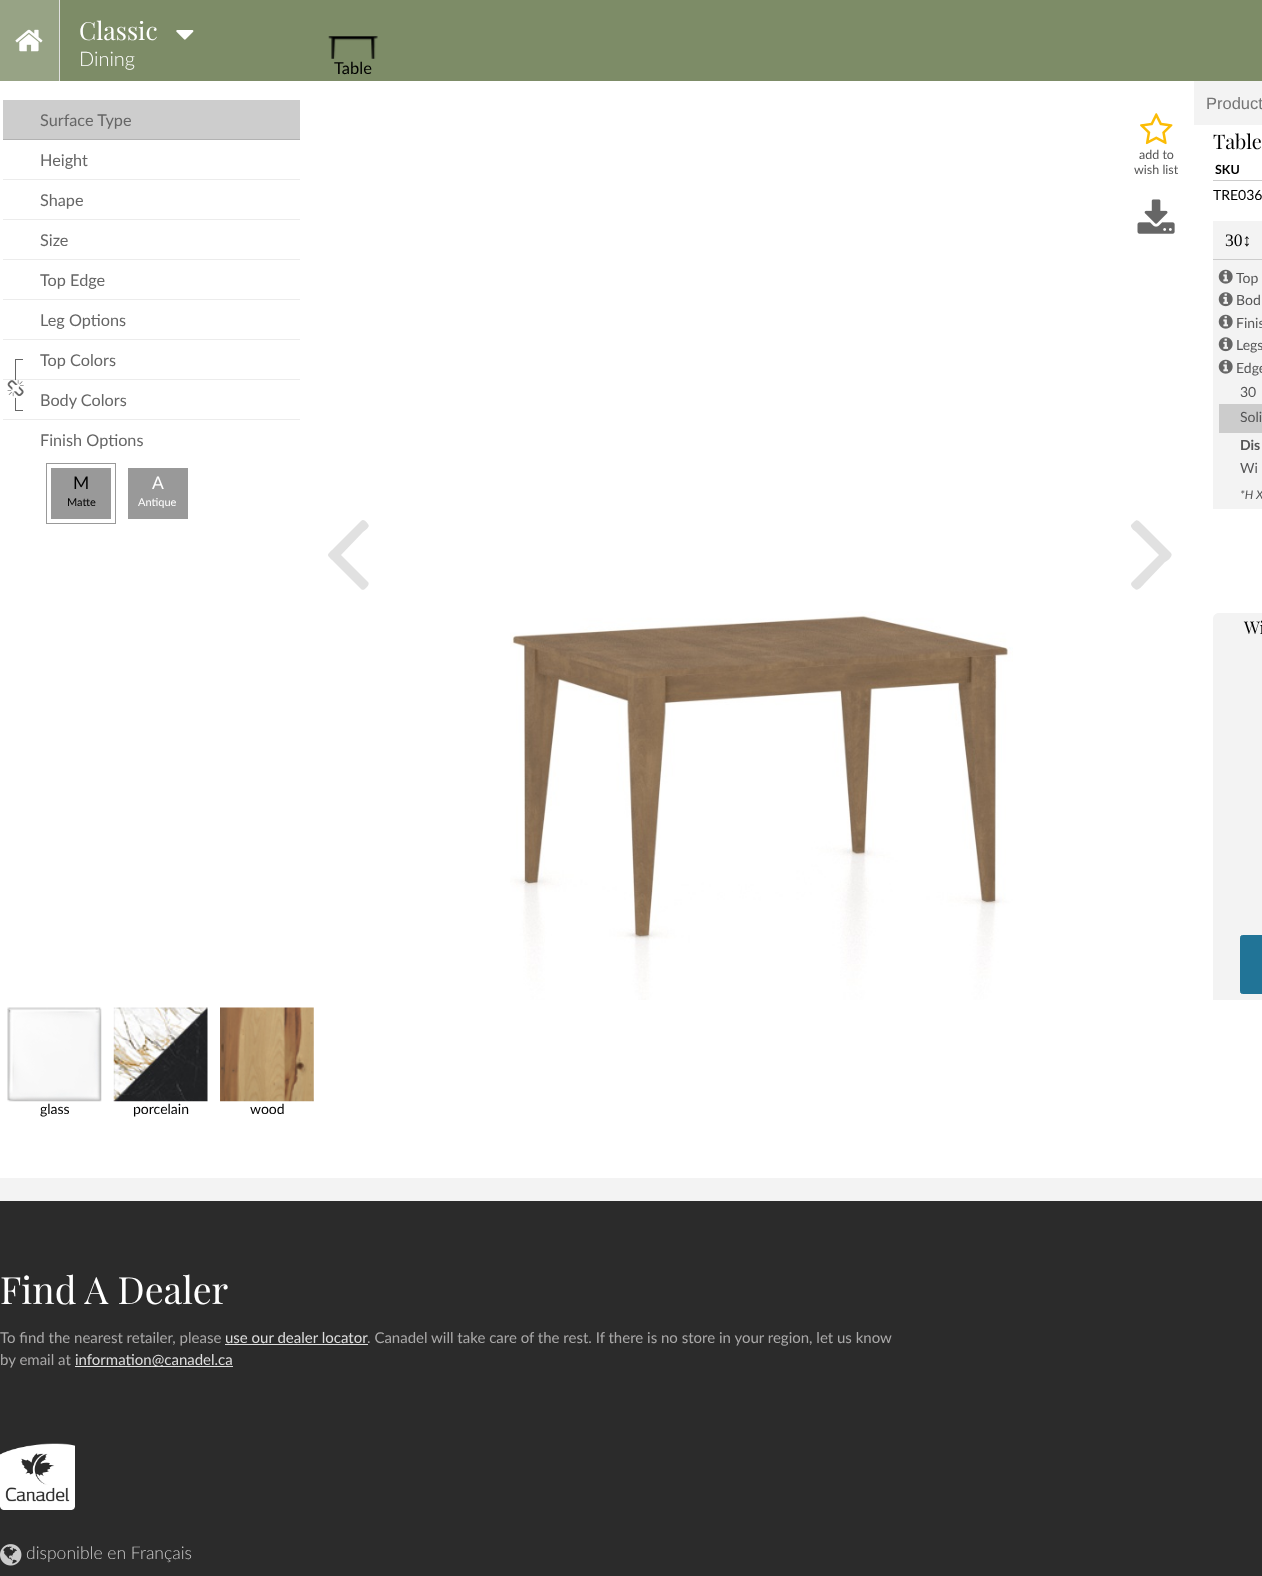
<svg xmlns="http://www.w3.org/2000/svg" width="1262" height="1576">
	<rect width="100%" height="100%" fill="#F3F3F3" />
	<rect x="60" y="0" width="1202" height="81" fill="#7D8C67" />
	<rect x="0" y="0" width="59" height="81" fill="#97A385" />
	<rect x="59" y="0" width="1" height="81" fill="#E1E1E1" />
	<image x="15" y="29" width="28" height="23" href="assets/img1.png" />
	<text x="79" y="40" font-family="Playfair Display" font-size="25" fill="#FFFFFF">Classic</text>
	<image x="176" y="30" width="18" height="10" href="assets/img2.png" />
	<text x="79" y="66" font-family="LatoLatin" font-size="20" font-weight="300" fill="#FFFFFF">Dining</text>
	<image x="328" y="36" width="50" height="23" href="assets/img3.png" />
	<text x="334" y="74" font-family="LatoLatin" font-size="16.5" fill="#000000">Table</text>
	<rect x="0" y="81" width="1262" height="1097" fill="#FFFFFF" />
	<rect x="3" y="100" width="297" height="39" fill="#CDCDCD" />
	<rect x="3" y="139" width="297" height="1" fill="#B2B2B2" />
	<text x="40" y="126" font-family="LatoLatin" font-size="16.25" fill="#666666">Surface Type</text>
	<rect x="3" y="179" width="297" height="1" fill="#ECECEC" />
	<text x="40" y="166" font-family="LatoLatin" font-size="16.25" fill="#666666">Height</text>
	<rect x="3" y="219" width="297" height="1" fill="#ECECEC" />
	<text x="40" y="206" font-family="LatoLatin" font-size="16.25" fill="#666666">Shape</text>
	<rect x="3" y="259" width="297" height="1" fill="#ECECEC" />
	<text x="40" y="246" font-family="LatoLatin" font-size="16.25" fill="#666666">Size</text>
	<rect x="3" y="299" width="297" height="1" fill="#ECECEC" />
	<text x="40" y="286" font-family="LatoLatin" font-size="16.25" fill="#666666">Top Edge</text>
	<rect x="3" y="339" width="297" height="1" fill="#ECECEC" />
	<text x="40" y="326" font-family="LatoLatin" font-size="16.25" fill="#666666">Leg Options</text>
	<rect x="3" y="379" width="297" height="1" fill="#ECECEC" />
	<text x="40" y="366" font-family="LatoLatin" font-size="16.25" fill="#666666">Top Colors</text>
	<rect x="15" y="359" width="8" height="1" fill="#666666" />
	<rect x="15" y="410" width="8" height="1" fill="#666666" />
	<rect x="15" y="359" width="1" height="52" fill="#666666" />
	<rect x="8" y="380" width="16" height="18" rx="8" fill="#FFFFFF" />
	<image x="7" y="380" width="17" height="17" href="assets/img4.png" />
	<rect x="3" y="419" width="297" height="1" fill="#ECECEC" />
	<g font-family="LatoLatin" font-size="16.25" fill="#666666">
		<text x="40" y="406">Body Colors</text>
		<text x="40" y="446">Finish Options</text>
	</g>
	<rect x="46.5" y="463.5" width="69" height="60" fill="none" stroke="#999999" />
	<rect x="51" y="468" width="60" height="51" fill="#999999" />
	<text x="73" y="489" font-family="LatoLatin" font-size="17.5" fill="#000000">M</text>
	<text x="67" y="506" font-family="LatoLatin" font-size="11" fill="#000000">Matte</text>
	<rect x="128" y="468" width="60" height="51" fill="#999999" />
	<text x="152" y="489" font-family="LatoLatin" font-size="17.5" fill="#FFFFFF">A</text>
	<text x="138" y="506" font-family="LatoLatin" font-size="11" fill="#FFFFFF">Antique</text>
	<image x="1140" y="113" width="33" height="32" href="assets/img5.png" />
	<g font-family="LatoLatin" font-size="12.5" fill="#555556">
		<text x="1139" y="159">add to</text>
		<text x="1134" y="174">wish list</text>
	</g>
	<image x="1137" y="199" width="38" height="35" href="assets/img6.png" />
	<path d="M368 524C371 527 364 531 363 532L341 555L368 582C370 584 367 587 366 588C365 589 363 591 361 589L334 562C326 554 326 556 334 548L361 521C364 518 367 523 368 524Z" fill="#E1E1E1" />
	<path d="M1171 553C1174 556 1166 562 1165 562L1144 584C1144 584 1138 592 1135 589C1134 588 1129 585 1132 582L1159 555L1136 532C1136 532 1130 528 1131 525L1134 522C1138 518 1139 522 1144 526Z" fill="#E1E1E1" />
	<image x="510" y="611" width="503" height="389" href="assets/img7.png" />
	<rect x="1194" y="81" width="68" height="44" fill="#F3F3F3" />
	<text x="1206" y="109" font-family="Liberation Sans" font-size="16.5" fill="#757575">Product</text>
	<text x="1213" y="149" font-family="Playfair Display" font-size="20" fill="#000000">Table</text>
	<rect x="1213" y="180" width="49" height="1" fill="#CCCCCC" />
	<text x="1215" y="174" font-family="LatoLatin" font-size="12.5" font-weight="700" fill="#000000">SKU</text>
	<text x="1213" y="200" font-family="LatoLatin" font-size="14" fill="#000000">TRE036</text>
	<rect x="1213" y="221" width="49" height="38" fill="#F3F3F3" />
	<text x="1225" y="246" font-family="Liberation Serif" font-size="17.5" fill="#000000">30↕</text>
	<rect x="1213" y="260" width="49" height="249" fill="#F3F3F3" />
	<rect x="1213" y="259" width="49" height="1" fill="#CCCCCC" />
	<image x="1218" y="269" width="15" height="15" href="assets/img8.png" />
	<text x="1236" y="283" font-family="LatoLatin" font-size="14" fill="#555556">Top</text>
	<image x="1218" y="292" width="15" height="15" href="assets/img9.png" />
	<text x="1236" y="305" font-family="LatoLatin" font-size="14" fill="#555556">Bod</text>
	<image x="1218" y="314" width="15" height="15" href="assets/img8.png" />
	<text x="1236" y="328" font-family="LatoLatin" font-size="14" fill="#555556">Finis</text>
	<image x="1218" y="337" width="15" height="15" href="assets/img9.png" />
	<text x="1236" y="350" font-family="LatoLatin" font-size="14" fill="#555556">Legs</text>
	<image x="1218" y="359" width="15" height="15" href="assets/img8.png" />
	<g font-family="LatoLatin" font-size="14" fill="#555556">
		<text x="1236" y="373">Edge</text>
		<text x="1240" y="397">30</text>
	</g>
	<rect x="1219" y="404" width="43" height="29" fill="#CCCCCC" />
	<text x="1240" y="422" font-family="LatoLatin" font-size="14" fill="#555556">Soli</text>
	<text x="1240" y="450" font-family="LatoLatin" font-size="14" font-weight="700" fill="#555556">Dis</text>
	<text x="1240" y="473" font-family="LatoLatin" font-size="14" fill="#555556">Wi</text>
	<text x="1240" y="499" font-family="LatoLatin" font-size="12" font-style="italic" fill="#555556">*H X</text>
	<path d="M1219 613H1262C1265.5 613 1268 615.5 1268 619V644H1213V619C1213 615.5 1215.5 613 1219 613Z" fill="#F3F3F3" />
	<text x="1244" y="634" font-family="Playfair Display" font-size="17.5" fill="#000000">Wi</text>
	<rect x="1213" y="644" width="49" height="356" fill="#F3F3F3" />
	<rect x="1240.5" y="935.5" width="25" height="58" rx="2" fill="#217497" stroke="#217497" />
	<image x="7" y="1007" width="95" height="95" href="assets/img10.png" />
	<text x="40" y="1114" font-family="LatoLatin" font-size="14" fill="#000000">glass</text>
	<image x="113" y="1007" width="95" height="95" href="assets/img11.png" />
	<text x="133" y="1114" font-family="LatoLatin" font-size="14" fill="#000000">porcelain</text>
	<image x="220" y="1007" width="94" height="95" href="assets/img12.png" />
	<text x="250" y="1114" font-family="LatoLatin" font-size="14" fill="#000000">wood</text>
	<rect x="0" y="1201" width="1262" height="375" fill="#2B2B2B" />
	<text x="0" y="1304" font-family="Playfair Display" font-size="37.5" fill="#FFFFFF">Find A Dealer</text>
	<text x="0" y="1343" font-family="LatoLatin" font-size="15" fill="#AAA9A9">To find the nearest retailer, please</text>
	<text x="225" y="1343" font-family="LatoLatin" font-size="15" fill="#DFDFDF">use our dealer locator</text>
	<rect x="225" y="1344" width="143" height="1" fill="#DFDFDF" />
	<g font-family="LatoLatin" font-size="15" fill="#AAA9A9">
		<text x="367" y="1343">. Canadel will take care of the rest. If there is no store in your region, let us know</text>
		<text x="0" y="1365">by email at</text>
	</g>
	<rect x="75" y="1366" width="158" height="1" fill="#DFDFDF" />
	<text x="75" y="1365" font-family="LatoLatin" font-size="15" fill="#DFDFDF">information@canadel.ca</text>
	<image x="0" y="1443" width="75" height="67" href="assets/img13.png" />
	<image x="0" y="1544" width="22" height="22" href="assets/img14.png" />
	<text x="26" y="1559" font-family="LatoLatin" font-size="17.5" font-weight="300" fill="#CCCCCC">disponible en Français</text>
</svg>
